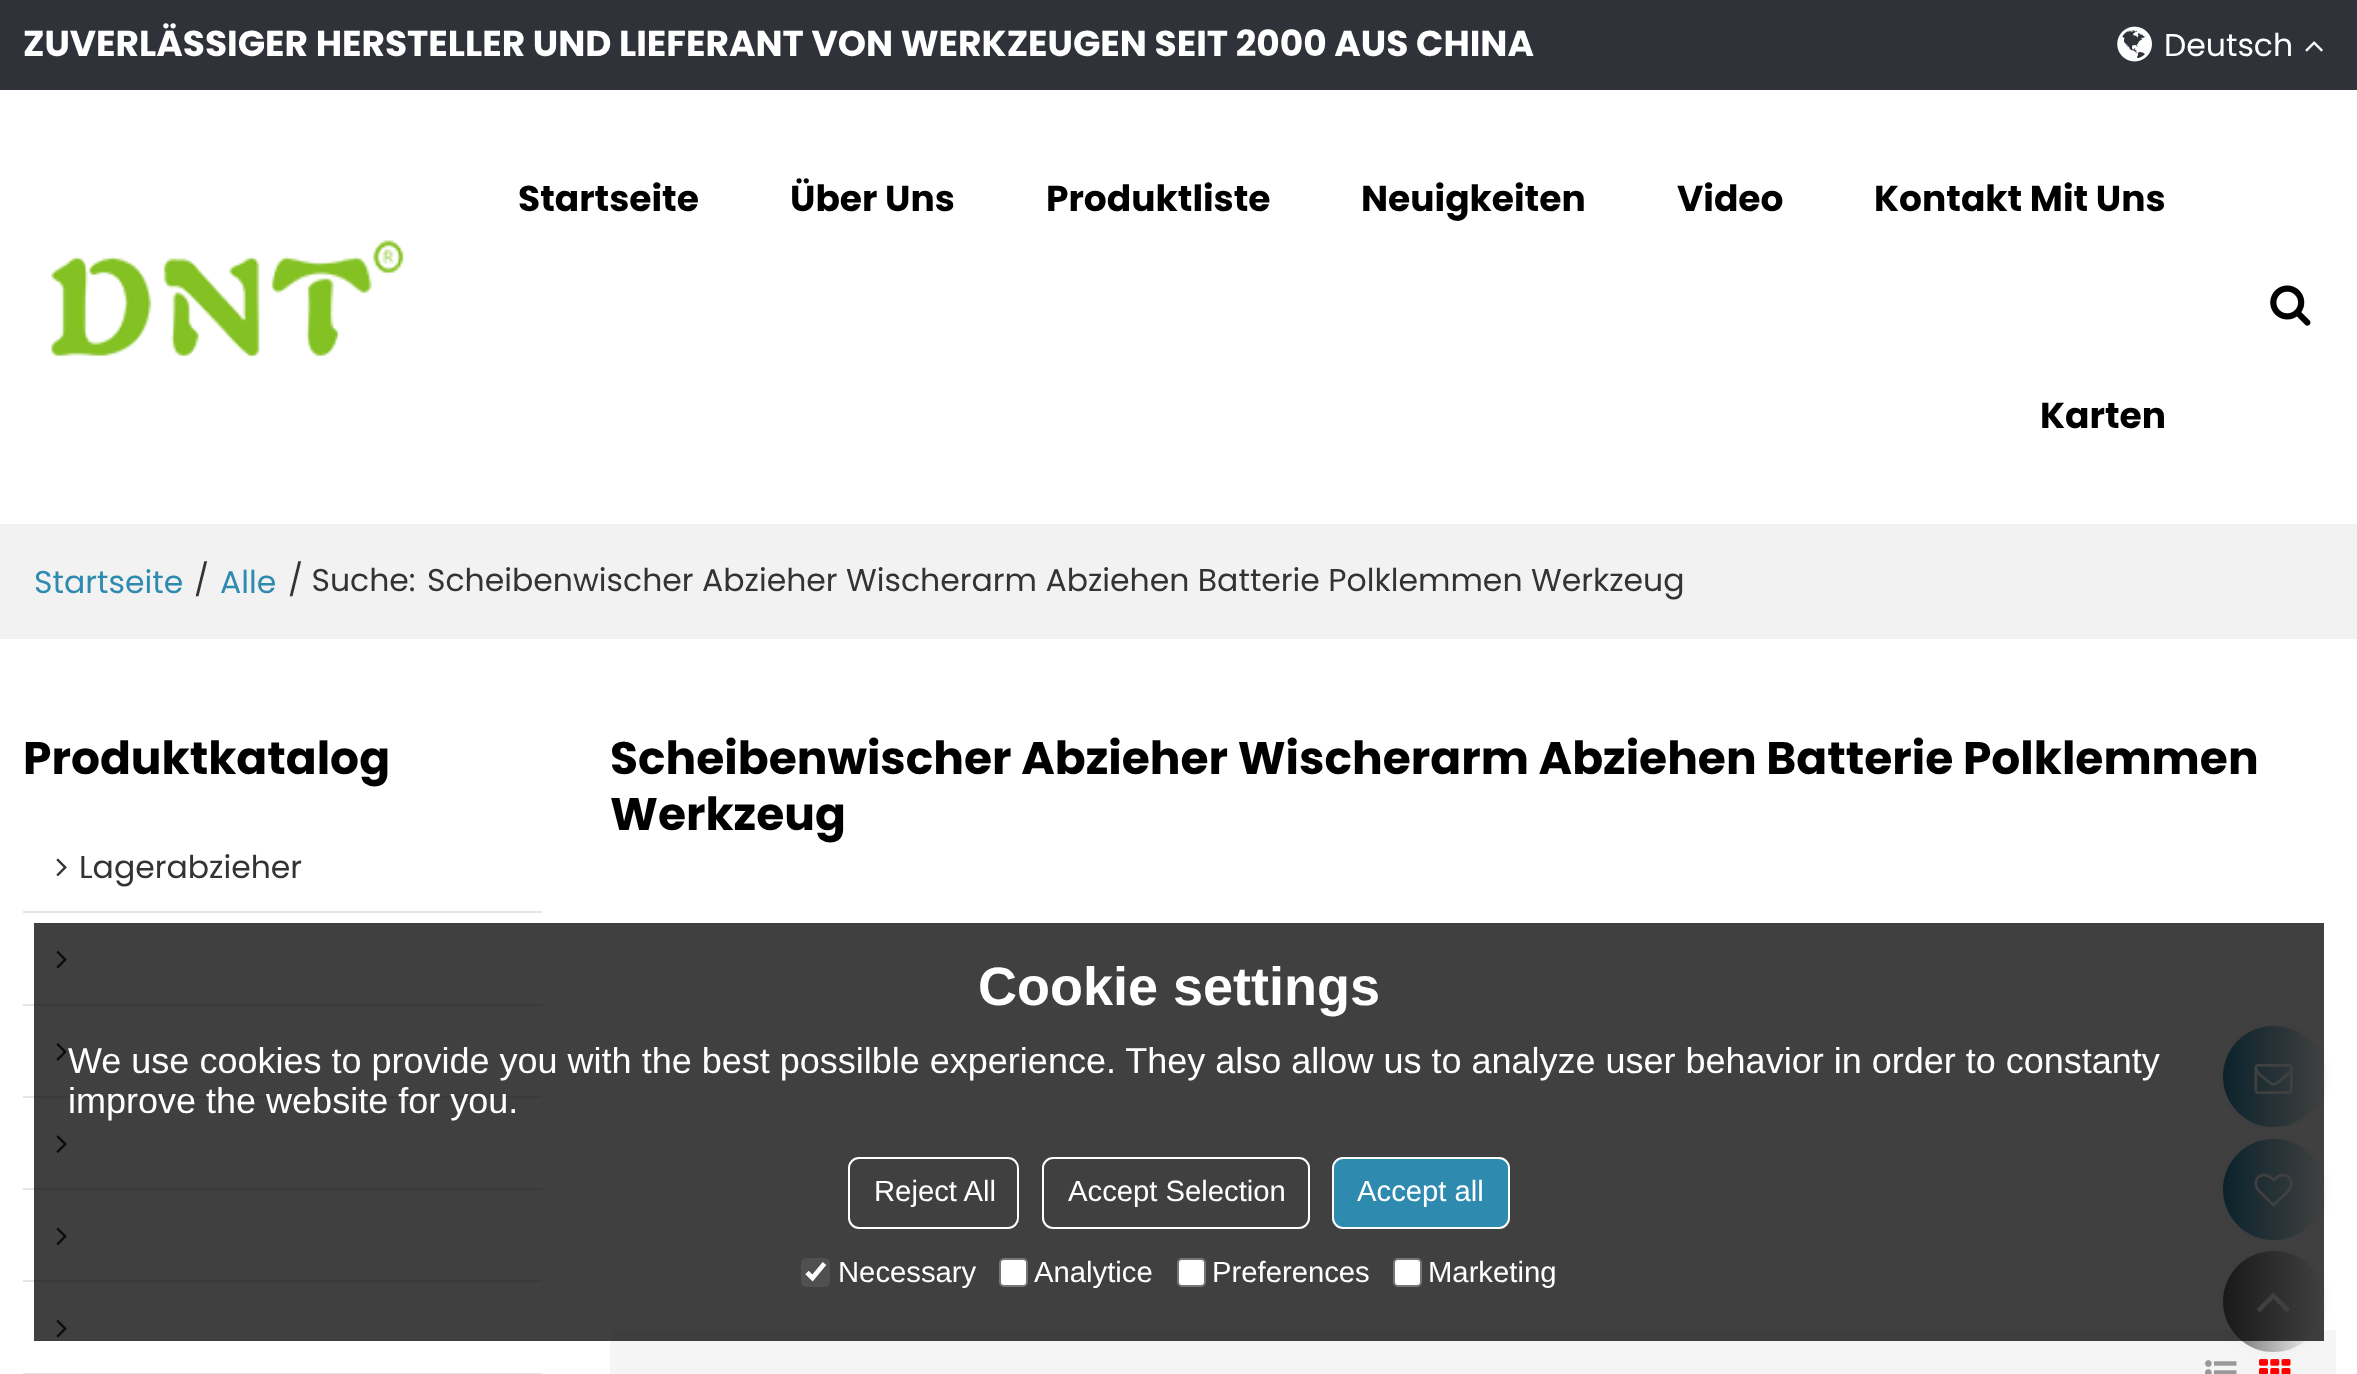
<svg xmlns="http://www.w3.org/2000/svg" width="2357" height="1374">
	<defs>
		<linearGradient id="g1" gradientUnits="userSpaceOnUse" x1="2223" y1="1077" x2="2324" y2="1077"><stop offset="0" stop-color="#2E8BAF" /><stop offset="1" stop-color="#FFFFFF" /></linearGradient>
		<linearGradient id="g2" gradientUnits="userSpaceOnUse" x1="2223" y1="1189" x2="2324" y2="1189"><stop offset="0" stop-color="#2E8BAF" /><stop offset="1" stop-color="#FFFFFF" /></linearGradient>
		<linearGradient id="g3" gradientUnits="userSpaceOnUse" x1="2223" y1="1302" x2="2324" y2="1302"><stop offset="0" stop-color="#666666" /><stop offset="1" stop-color="#FFFFFF" /></linearGradient>
	</defs>
	<rect width="100%" height="100%" fill="#FFFFFF" />
	<rect x="0" y="0" width="2357" height="90" fill="#2F3239" />
	<text x="23" y="56" font-family="Poppins" font-size="36" font-weight="700" fill="#FFFFFF">ZUVERLÄSSIGER HERSTELLER UND LIEFERANT VON WERKZEUGEN SEIT 2000 AUS CHINA</text>
	<image x="2117" y="26" width="35" height="36" href="assets/img1.png" />
	<text x="2164" y="56" font-family="Poppins" font-size="31.5" fill="#FFFFFF">Deutsch</text>
	<image x="2305" y="41" width="18" height="11" href="assets/img2.png" />
	<image x="51" y="240" width="353" height="117" href="assets/img3.png" />
	<g font-family="Poppins" font-size="36" font-weight="700" fill="#000000">
		<text x="518" y="211">Startseite</text>
		<text x="790" y="211">Über Uns</text>
		<text x="1046" y="211">Produktliste</text>
		<text x="1361" y="211">Neuigkeiten</text>
		<text x="1677" y="211">Video</text>
		<text x="1874" y="211">Kontakt Mit Uns</text>
		<text x="2040" y="428">Karten</text>
	</g>
	<image x="2270" y="285" width="41" height="41" href="assets/img4.png" />
	<rect x="0" y="524" width="2357" height="115" fill="#F2F2F2" />
	<text x="34" y="593" font-family="Poppins" font-size="31.5" fill="#2E8BAF">Startseite</text>
	<text x="194" y="591" font-family="Poppins" font-size="31.5" fill="#333333">/</text>
	<text x="220" y="593" font-family="Poppins" font-size="31.5" fill="#2E8BAF">Alle</text>
	<g font-family="Poppins" font-size="31.5" fill="#333333">
		<text x="288" y="591">/ Suche:</text>
		<text x="427" y="591">Scheibenwischer Abzieher Wischerarm Abziehen Batterie Polklemmen Werkzeug</text>
	</g>
	<text x="23" y="774" font-family="Poppins" font-size="45.55" font-weight="700" fill="#000000">Produktkatalog</text>
	<rect x="23" y="911" width="519" height="2" fill="#E5E5E5" />
	<image x="56" y="858" width="11" height="19" href="assets/img5.png" />
	<text x="79" y="878" font-family="Poppins" font-size="31.5" fill="#333333">Lagerabzieher</text>
	<rect x="23" y="1004" width="519" height="2" fill="#E5E5E5" />
	<image x="56" y="950" width="11" height="19" href="assets/img6.png" />
	<rect x="23" y="1096" width="519" height="2" fill="#E5E5E5" />
	<image x="56" y="1043" width="11" height="18" href="assets/img7.png" />
	<rect x="23" y="1188" width="519" height="2" fill="#E5E5E5" />
	<image x="56" y="1135" width="11" height="18" href="assets/img8.png" />
	<rect x="23" y="1280" width="519" height="2" fill="#E5E5E5" />
	<image x="56" y="1227" width="11" height="19" href="assets/img5.png" />
	<rect x="23" y="1373" width="519" height="1" fill="#E5E5E5" />
	<image x="56" y="1319" width="11" height="19" href="assets/img6.png" />
	<g font-family="Poppins" font-size="45.55" font-weight="700" fill="#000000">
		<text x="610" y="774">Scheibenwischer Abzieher Wischerarm Abziehen Batterie Polklemmen</text>
		<text x="610" y="830">Werkzeug</text>
	</g>
	<rect x="610" y="1330" width="1726" height="44" fill="#F5F5F5" />
	<image x="2205" y="1360" width="32" height="14" href="assets/img9.png" />
	<image x="2259" y="1359" width="32" height="15" href="assets/img10.png" />
	<rect x="2223" y="1026" width="101" height="101" rx="50.5" fill="#EEEEEE" filter="blur(5.5px)" />
	<circle cx="2273.5" cy="1076.5" r="50.5" fill="url(#g1)" />
	<image x="2254" y="1063" width="39" height="31" href="assets/img11.png" />
	<rect x="2223" y="1139" width="101" height="101" rx="50.5" fill="#EEEEEE" filter="blur(5.5px)" />
	<circle cx="2273.5" cy="1189.5" r="50.5" fill="url(#g2)" />
	<image x="2254" y="1173" width="39" height="34" href="assets/img12.png" />
	<rect x="2223" y="1251" width="101" height="101" rx="50.5" fill="#EEEEEE" filter="blur(5.5px)" />
	<circle cx="2273.5" cy="1301.5" r="50.5" fill="url(#g3)" />
	<image x="2257" y="1293" width="33" height="19" href="assets/img13.png" />
	<rect x="34" y="923" width="2290" height="418" fill="#000000" fill-opacity="0.75" />
	<text x="978" y="1005" font-family="Liberation Sans" font-size="54" font-weight="700" fill="#FFFFFF">Cookie settings</text>
	<g font-family="Liberation Sans" font-size="36" fill="#FFFFFF">
		<text x="68" y="1073">We use cookies to provide you with the best possilble experience. They also allow us to analyze user behavior in order to constanty</text>
		<text x="68" y="1113">improve the website for you.</text>
	</g>
	<rect x="849" y="1158" width="169" height="70" rx="10" fill="none" stroke="#FFFFFF" stroke-width="2" />
	<text x="874" y="1201" font-family="Liberation Sans" font-size="29.25" fill="#FFFFFF">Reject All</text>
	<rect x="1043" y="1158" width="266" height="70" rx="10" fill="none" stroke="#FFFFFF" stroke-width="2" />
	<text x="1068" y="1201" font-family="Liberation Sans" font-size="29.25" fill="#FFFFFF">Accept Selection</text>
	<rect x="1333" y="1158" width="176" height="70" rx="10" fill="#2E8BAF" stroke="#FFFFFF" stroke-width="2" />
	<text x="1357" y="1201" font-family="Liberation Sans" font-size="29.25" fill="#FFFFFF">Accept all</text>
	<rect x="801" y="1258" width="29" height="29" rx="5" fill="#505050" />
	<path d="M807 1272.5L812.5 1278L824.5 1263.5" fill="none" stroke="#FFFFFF" stroke-width="4.7" />
	<text x="838" y="1282" font-family="Liberation Sans" font-size="29.25" fill="#FFFFFF">Necessary</text>
	<rect x="1000" y="1259" width="27" height="27" rx="4" fill="#FFFFFF" stroke="#767676" stroke-width="2" />
	<text x="1034" y="1282" font-family="Liberation Sans" font-size="29.25" fill="#FFFFFF">Analytice</text>
	<rect x="1178" y="1259" width="27" height="27" rx="4" fill="#FFFFFF" stroke="#767676" stroke-width="2" />
	<text x="1212" y="1282" font-family="Liberation Sans" font-size="29.25" fill="#FFFFFF">Preferences</text>
	<rect x="1394" y="1259" width="27" height="27" rx="4" fill="#FFFFFF" stroke="#767676" stroke-width="2" />
	<text x="1428" y="1282" font-family="Liberation Sans" font-size="29.25" fill="#FFFFFF">Marketing</text>
</svg>
